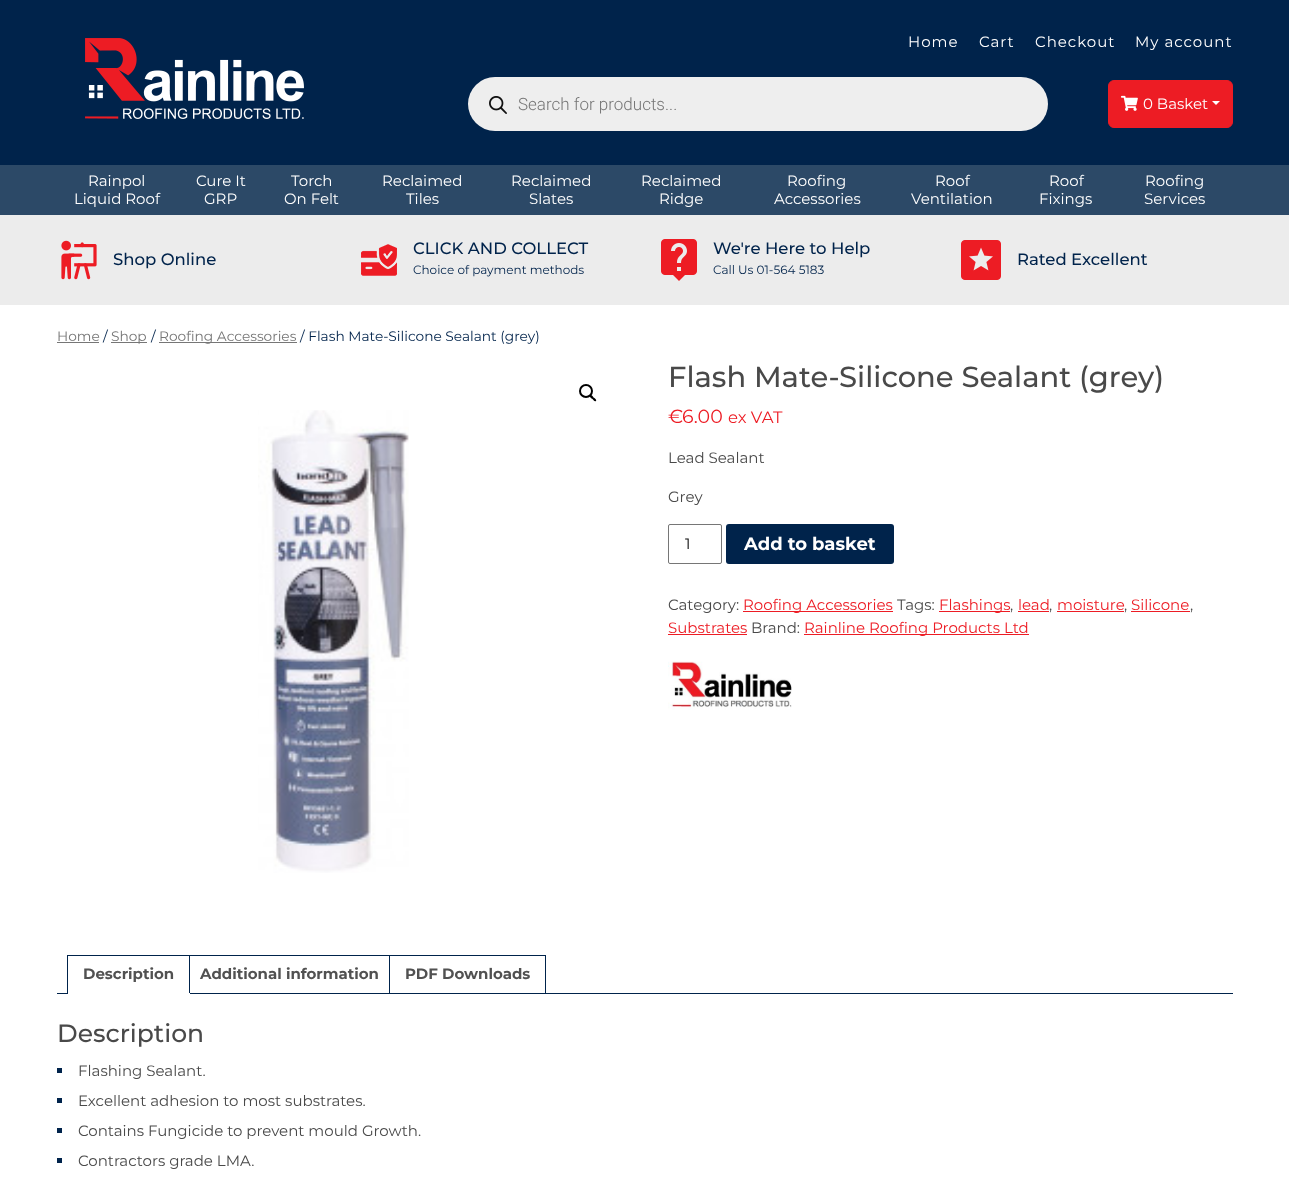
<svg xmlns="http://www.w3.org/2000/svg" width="1289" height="1178">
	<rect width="100%" height="100%" fill="#FFFFFF" />
	<rect x="0" y="0" width="1289" height="165" fill="#00234B" />
	<image x="85" y="38" width="219" height="81" href="assets/img1.png" />
	<g font-family="Montserrat" font-size="15" letter-spacing="1" fill="#FFFFFF">
		<text x="908" y="47">Home</text>
		<text x="979" y="47">Cart</text>
		<text x="1035" y="47">Checkout</text>
		<text x="1135" y="47">My account</text>
	</g>
	<rect x="468" y="77" width="580" height="54" rx="27" fill="#EEEEEE" />
	<image x="489" y="96" width="18" height="18" href="assets/img2.png" />
	<text x="518" y="110" font-family="Roboto" font-size="17" font-weight="300" fill="#767676">Search for products...</text>
	<rect x="1108.5" y="80.5" width="124" height="47" rx="5.5" fill="#ED1C24" stroke="#ED1C24" />
	<image x="1121" y="95" width="17" height="16" href="assets/img3.png" />
	<text x="1143" y="109" font-family="Montserrat" font-size="15" fill="#FFFFFF">0 Basket</text>
	<path d="M1212 101H1220L1216 105Z" fill="#FFFFFF" />
	<rect x="0" y="165" width="1289" height="50" fill="#2C4967" />
	<g font-family="Montserrat" font-size="15" fill="#FFFFFF">
		<text x="88" y="186">Rainpol</text>
		<text x="74" y="204">Liquid Roof</text>
		<text x="196" y="186">Cure It</text>
		<text x="204" y="204">GRP</text>
		<text x="291" y="186">Torch</text>
		<text x="284" y="204">On Felt</text>
		<text x="382" y="186">Reclaimed</text>
		<text x="406" y="204">Tiles</text>
		<text x="511" y="186">Reclaimed</text>
		<text x="529" y="204">Slates</text>
		<text x="641" y="186">Reclaimed</text>
		<text x="659" y="204">Ridge</text>
		<text x="787" y="186">Roofing</text>
		<text x="774" y="204">Accessories</text>
		<text x="935" y="186">Roof</text>
		<text x="911" y="204">Ventilation</text>
		<text x="1049" y="186">Roof</text>
		<text x="1039" y="204">Fixings</text>
		<text x="1145" y="186">Roofing</text>
		<text x="1144" y="204">Services</text>
	</g>
	<rect x="0" y="215" width="1289" height="90" fill="#ECECEC" />
	<image x="61" y="240" width="36" height="40" href="assets/img4.png" />
	<text x="113" y="265" font-family="Montserrat" font-size="16.5" font-weight="500" fill="#00234B">Shop Online</text>
	<image x="361" y="244" width="36" height="32" href="assets/img5.png" />
	<text x="413" y="254" font-family="Montserrat" font-size="16.5" font-weight="500" fill="#00234B">CLICK AND COLLECT</text>
	<text x="413" y="274" font-family="Montserrat" font-size="12" fill="#00234B">Choice of payment methods</text>
	<image x="661" y="239" width="36" height="42" href="assets/img6.png" />
	<text x="713" y="254" font-family="Montserrat" font-size="16.5" font-weight="500" fill="#00234B">We're Here to Help</text>
	<text x="713" y="274" font-family="Montserrat" font-size="12" fill="#00234B">Call Us 01-564 5183</text>
	<image x="961" y="240" width="40" height="40" href="assets/img7.png" />
	<text x="1017" y="265" font-family="Montserrat" font-size="16.5" font-weight="500" fill="#00234B">Rated Excellent</text>
	<text x="57" y="341" font-family="Montserrat" font-size="13.75" fill="#767676">Home</text>
	<rect x="57" y="342" width="42" height="1" fill="#767676" />
	<text x="103" y="341" font-family="Montserrat" font-size="13.75" fill="#00234B">/</text>
	<rect x="111" y="342" width="36" height="1" fill="#767676" />
	<text x="111" y="341" font-family="Montserrat" font-size="13.75" fill="#767676">Shop</text>
	<text x="151" y="341" font-family="Montserrat" font-size="13.75" fill="#00234B">/</text>
	<rect x="159" y="342" width="138" height="1" fill="#767676" />
	<text x="159" y="341" font-family="Montserrat" font-size="13.75" fill="#767676">Roofing Accessories</text>
	<text x="300" y="341" font-family="Montserrat" font-size="13.75" fill="#00234B">/ Flash Mate-Silicone Sealant (grey)</text>
	<circle cx="586" cy="391" r="6" fill="none" stroke="#000000" stroke-width="2" />
	<path d="M590 395.5C591.5 394 593 397 593.5 397.5C594.5 398 597 400 596 401C594.5 402 593 399.5 592.5 399C591.5 398.5 589 396.5 590 395.5Z" fill="#000000" />
	<image x="258" y="410" width="151" height="463" href="assets/img8.png" />
	<text x="668" y="387" font-family="Montserrat" font-size="29" font-weight="500" fill="#494949">Flash Mate-Silicone Sealant (grey)</text>
	<g font-family="Montserrat" font-size="19" fill="#ED1C24">
		<text x="668" y="423">€</text>
		<text x="682" y="423">6.00</text>
	</g>
	<text x="728" y="423" font-family="Montserrat" font-size="16.5" fill="#ED1C24">ex VAT</text>
	<g font-family="Montserrat" font-size="15" fill="#494949">
		<text x="668" y="463">Lead Sealant</text>
		<text x="668" y="502">Grey</text>
	</g>
	<rect x="668.5" y="524.5" width="53" height="39" rx="1.5" fill="none" stroke="#767676" />
	<text x="685" y="549" font-family="Montserrat" font-size="15" fill="#000000">1</text>
	<rect x="726" y="524" width="168" height="40" rx="3" fill="#00234B" />
	<text x="744" y="550" font-family="Montserrat" font-size="18" font-weight="700" fill="#FFFFFF">Add to basket</text>
	<text x="668" y="610" font-family="Montserrat" font-size="15" fill="#494949">Category:</text>
	<rect x="743" y="611" width="150" height="1" fill="#ED1C24" />
	<text x="743" y="610" font-family="Montserrat" font-size="15" fill="#ED1C24">Roofing Accessories</text>
	<text x="897" y="610" font-family="Montserrat" font-size="15" fill="#494949">Tags:</text>
	<rect x="939" y="611" width="71" height="1" fill="#ED1C24" />
	<text x="939" y="610" font-family="Montserrat" font-size="15" fill="#ED1C24">Flashings</text>
	<text x="1010" y="610" font-family="Montserrat" font-size="15" fill="#494949">,</text>
	<text x="1018" y="610" font-family="Montserrat" font-size="15" fill="#ED1C24">lead</text>
	<text x="1049" y="610" font-family="Montserrat" font-size="15" fill="#494949">,</text>
	<rect x="1018" y="611" width="31" height="1" fill="#ED1C24" />
	<text x="1057" y="610" font-family="Montserrat" font-size="15" fill="#ED1C24">moisture</text>
	<text x="1124" y="610" font-family="Montserrat" font-size="15" fill="#494949">,</text>
	<rect x="1057" y="611" width="67" height="1" fill="#ED1C24" />
	<text x="1131" y="610" font-family="Montserrat" font-size="15" fill="#ED1C24">Silicone</text>
	<text x="1190" y="610" font-family="Montserrat" font-size="15" fill="#494949">,</text>
	<rect x="1131" y="611" width="59" height="1" fill="#ED1C24" />
	<text x="668" y="633" font-family="Montserrat" font-size="15" fill="#ED1C24">Substrates</text>
	<rect x="668" y="634" width="79" height="1" fill="#ED1C24" />
	<text x="751" y="633" font-family="Montserrat" font-size="15" fill="#494949">Brand:</text>
	<rect x="804" y="634" width="225" height="1" fill="#ED1C24" />
	<text x="804" y="633" font-family="Montserrat" font-size="15" fill="#ED1C24">Rainline Roofing Products Ltd</text>
	<image x="668" y="661" width="124" height="49" href="assets/img9.png" />
	<rect x="184.5" y="955.5" width="210" height="38" fill="none" stroke="#00234B" />
	<rect x="184" y="956" width="1" height="37" fill="#FFFFFF" />
	<rect x="67" y="955" width="123" height="1" fill="#00234B" />
	<rect x="394" y="956" width="1" height="37" fill="#FFFFFF" />
	<rect x="389.5" y="955.5" width="156" height="38" fill="none" stroke="#00234B" />
	<rect x="57" y="993" width="1176" height="1" fill="#00234B" />
	<rect x="189" y="955" width="1" height="39" fill="#00234B" />
	<rect x="67" y="993" width="123" height="1" fill="#FFFFFF" />
	<rect x="67" y="955" width="1" height="39" fill="#00234B" />
	<g font-family="Montserrat" font-size="15" font-weight="700" fill="#515151">
		<text x="83" y="979">Description</text>
		<text x="200" y="979">Additional information</text>
		<text x="405" y="979">PDF Downloads</text>
	</g>
	<text x="57" y="1042" font-family="Montserrat" font-size="25" font-weight="500" fill="#494949">Description</text>
	<rect x="57" y="1068" width="5" height="5" fill="#00234B" />
	<text x="78" y="1076" font-family="Montserrat" font-size="15" fill="#494949">Flashing Sealant.</text>
	<rect x="57" y="1098" width="5" height="5" fill="#00234B" />
	<text x="78" y="1106" font-family="Montserrat" font-size="15" fill="#494949">Excellent adhesion to most substrates.</text>
	<rect x="57" y="1128" width="5" height="5" fill="#00234B" />
	<text x="78" y="1136" font-family="Montserrat" font-size="15" fill="#494949">Contains Fungicide to prevent mould Growth.</text>
	<rect x="57" y="1158" width="5" height="5" fill="#00234B" />
	<text x="78" y="1166" font-family="Montserrat" font-size="15" fill="#494949">Contractors grade LMA.</text>
</svg>
